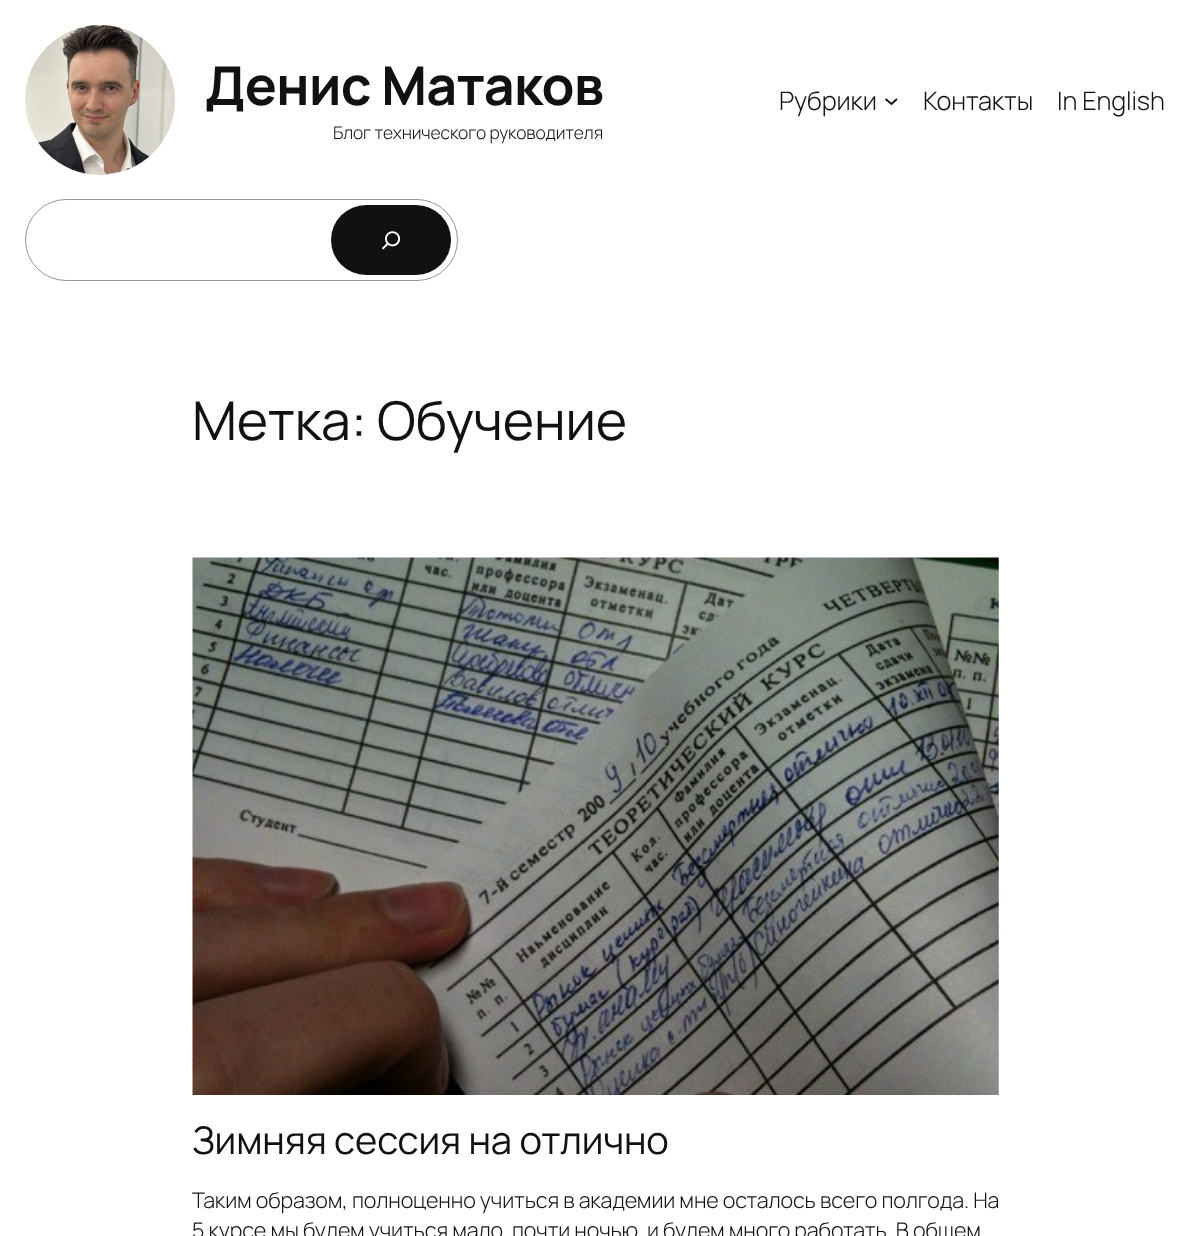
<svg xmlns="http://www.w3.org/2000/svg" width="1189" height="1236">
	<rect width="100%" height="100%" fill="#FFFFFF" />
	<image x="25" y="25" width="150" height="150" href="assets/img1.png" />
	<text x="205" y="105" font-family="Manrope" font-size="53.5" font-weight="700" letter-spacing="-0.6" fill="#111111">Денис Матаков</text>
	<text x="333" y="139" font-family="Manrope" font-size="17.5" font-weight="300" letter-spacing="-0.12" fill="#111111">Блог технического руководителя</text>
	<text x="779" y="110" font-family="Manrope" font-size="25.5" font-weight="300" letter-spacing="-0.12" fill="#111111">Рубрики</text>
	<path d="M885.5 99L891.5 104L897 99" fill="none" stroke="#111111" stroke-width="1.9" />
	<g font-family="Manrope" font-size="25.5" font-weight="300" letter-spacing="-0.12" fill="#111111">
		<text x="923" y="110">Контакты</text>
		<text x="1057" y="110">In English</text>
	</g>
	<rect x="25.5" y="199.5" width="432" height="81" rx="40.5" fill="none" stroke="#949494" />
	<rect x="331" y="205" width="120" height="70" rx="35" fill="#111111" />
	<image x="382" y="231" width="19" height="19" href="assets/img2.png" />
	<text x="192" y="440" font-family="Manrope" font-size="53.5" letter-spacing="-0.12" fill="#111111">Метка: Обучение</text>
	<image x="192" y="557" width="807" height="538" href="assets/img3.png" />
	<text x="192" y="1154" font-family="Manrope" font-size="38.1" letter-spacing="-0.12" fill="#111111">Зимняя сессия на отлично</text>
	<g font-family="Manrope" font-size="21.55" font-weight="300" letter-spacing="-0.12" fill="#111111">
		<text x="192" y="1208">Таким образом, полноценно учиться в академии мне осталось всего полгода. На</text>
		<text x="192" y="1238">5 курсе мы будем учиться мало, почти ночью, и будем много работать. В общем</text>
	</g>
</svg>
